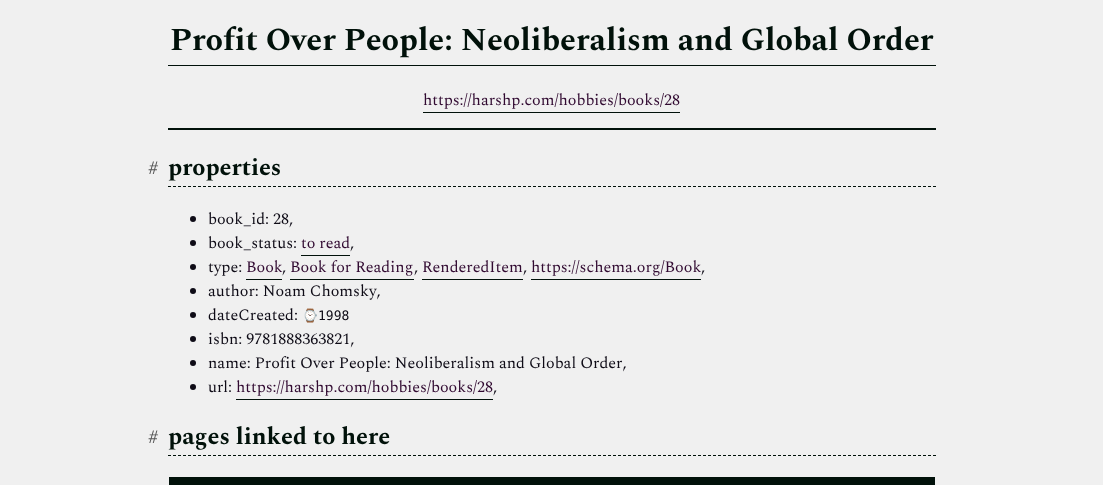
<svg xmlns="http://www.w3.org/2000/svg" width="1103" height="485">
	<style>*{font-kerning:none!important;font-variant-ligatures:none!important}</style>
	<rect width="100%" height="100%" fill="#F0F0F0" />
	<rect x="168" y="65" width="768" height="1" fill="#01110A" />
	<text x="170" y="50" font-family="Spectral" font-size="32" font-weight="700" fill="#01110A">Profit Over People: Neoliberalism and Global Order</text>
	<rect x="168" y="128" width="768" height="2" fill="#01110A" />
	<text x="423" y="105" font-family="Spectral" font-size="16" fill="#310A31">https://harshp.com/hobbies/books/28</text>
	<rect x="423" y="112" width="257" height="1" fill="#01110A" />
	<path d="M168 186.5H936" fill="none" stroke="#01110A" stroke-dasharray="3 2" />
	<text x="148" y="174" font-family="Spectral" font-size="19" font-weight="700" fill="#555555">#</text>
	<text x="168" y="175" font-family="Spectral" font-size="24" font-weight="700" fill="#01110A">properties</text>
	<circle cx="193" cy="219" r="3" fill="#0E0B16" />
	<text x="208" y="224" font-family="Spectral" font-size="16" fill="#0E0B16">book_id: 28,</text>
	<circle cx="193" cy="243" r="3" fill="#0E0B16" />
	<text x="208" y="248" font-family="Spectral" font-size="16" fill="#0E0B16">book_status:</text>
	<text x="301" y="248" font-family="Spectral" font-size="16" fill="#310A31">to read</text>
	<rect x="301" y="255" width="49" height="1" fill="#01110A" />
	<text x="350" y="248" font-family="Spectral" font-size="16" fill="#0E0B16">,</text>
	<circle cx="193" cy="267" r="3" fill="#0E0B16" />
	<text x="208" y="272" font-family="Spectral" font-size="16" fill="#0E0B16">type:</text>
	<text x="246" y="272" font-family="Spectral" font-size="16" fill="#310A31">Book</text>
	<rect x="246" y="279" width="36" height="1" fill="#01110A" />
	<text x="290" y="272" font-family="Spectral" font-size="16" fill="#310A31">Book for Reading</text>
	<rect x="290" y="279" width="124" height="1" fill="#01110A" />
	<text x="422" y="272" font-family="Spectral" font-size="16" fill="#310A31">RenderedItem</text>
	<rect x="422" y="279" width="101" height="1" fill="#01110A" />
	<text x="531" y="272" font-family="Spectral" font-size="16" fill="#310A31">https://schema.org/Book</text>
	<rect x="531" y="279" width="170" height="1" fill="#01110A" />
	<g font-family="Spectral" font-size="16" fill="#0E0B16">
		<text x="282" y="272">,</text>
		<text x="414" y="272">,</text>
		<text x="523" y="272">,</text>
		<text x="701" y="272">,</text>
	</g>
	<circle cx="193" cy="291" r="3" fill="#0E0B16" />
	<text x="208" y="296" font-family="Spectral" font-size="16" fill="#0E0B16">author: Noam Chomsky,</text>
	<circle cx="193" cy="315" r="3" fill="#0E0B16" />
	<text x="208" y="320" font-family="Spectral" font-size="16" fill="#0E0B16">dateCreated:</text>
	<text x="302" y="320" font-family="Noto Color Emoji" font-size="13" fill="#0E0B16">⌚</text>
	<text x="318" y="320" font-family="DejaVu Sans Mono" font-size="13" fill="#0E0B16">1998</text>
	<circle cx="193" cy="339" r="3" fill="#0E0B16" />
	<text x="208" y="344" font-family="Spectral" font-size="16" fill="#0E0B16">isbn: 9781888363821,</text>
	<circle cx="193" cy="363" r="3" fill="#0E0B16" />
	<text x="208" y="368" font-family="Spectral" font-size="16" fill="#0E0B16">name: Profit Over People: Neoliberalism and Global Order,</text>
	<circle cx="193" cy="387" r="3" fill="#0E0B16" />
	<text x="208" y="392" font-family="Spectral" font-size="16" fill="#0E0B16">url:</text>
	<text x="236" y="392" font-family="Spectral" font-size="16" fill="#310A31">https://harshp.com/hobbies/books/28</text>
	<rect x="236" y="399" width="257" height="1" fill="#01110A" />
	<text x="493" y="392" font-family="Spectral" font-size="16" fill="#0E0B16">,</text>
	<path d="M168 455.5H936" fill="none" stroke="#01110A" stroke-dasharray="3 2" />
	<text x="148" y="443" font-family="Spectral" font-size="19" font-weight="700" fill="#555555">#</text>
	<text x="168" y="444" font-family="Spectral" font-size="24" font-weight="700" fill="#01110A">pages linked to here</text>
	<rect x="169" y="477" width="766" height="8" fill="#01110A" />
</svg>
